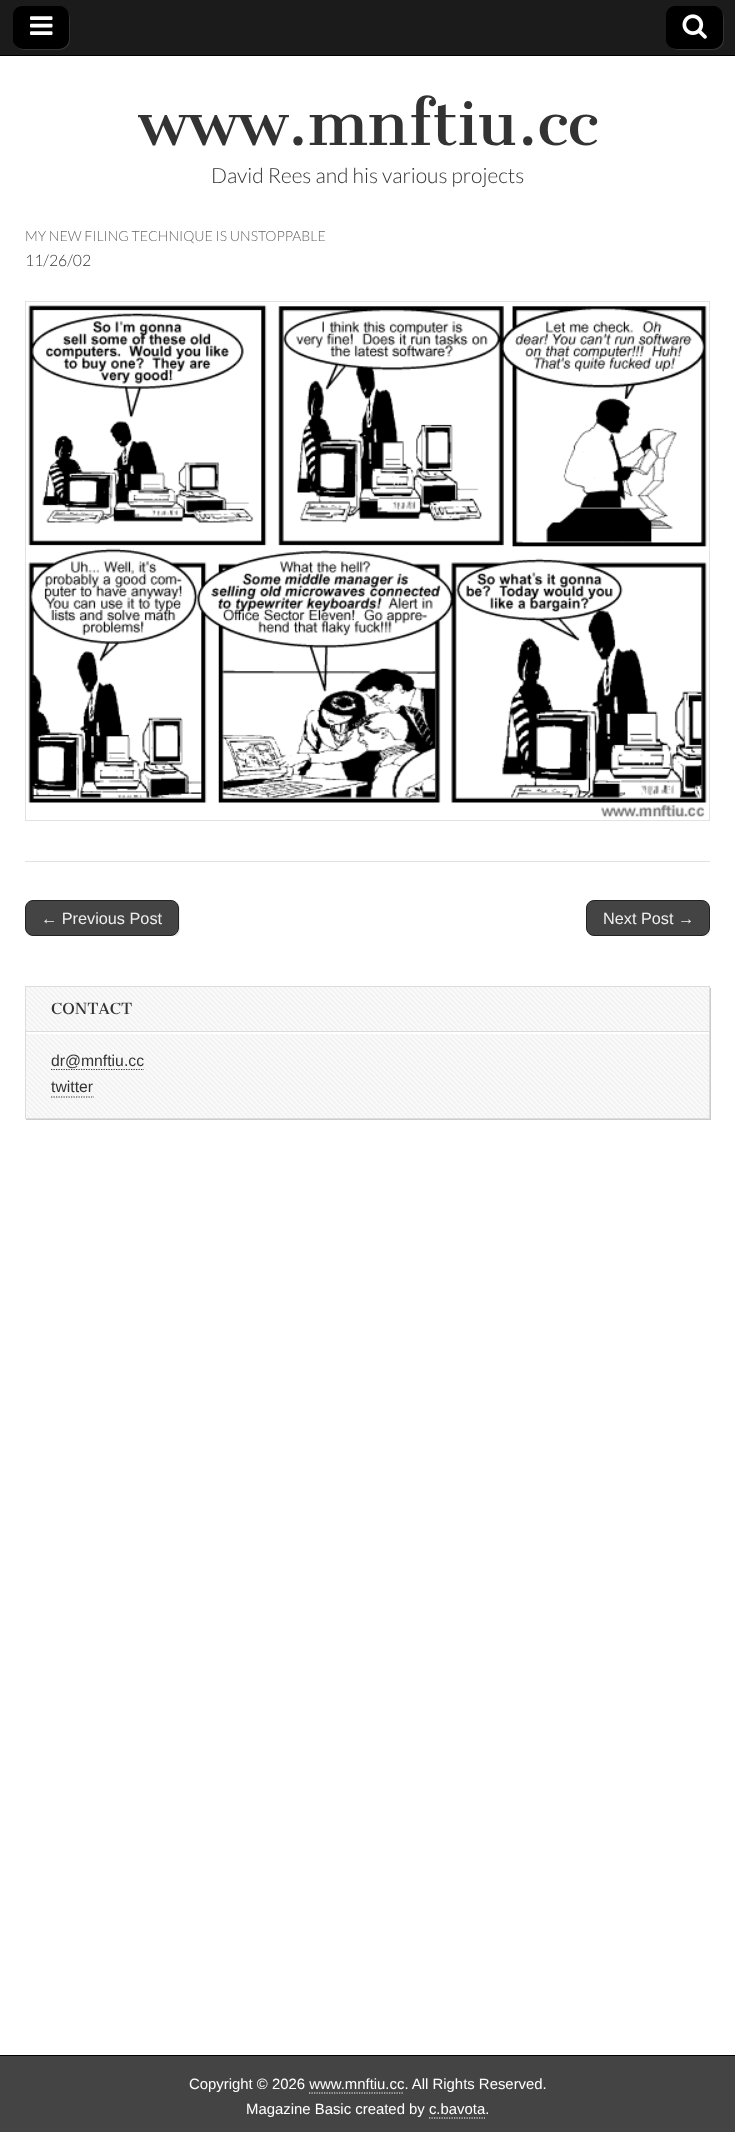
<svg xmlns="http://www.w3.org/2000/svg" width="735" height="2132">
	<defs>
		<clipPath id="clip1"><rect x="25" y="900" width="685" height="36" /></clipPath>
	</defs>
	<rect width="100%" height="100%" fill="#FFFFFF" />
	<rect x="0" y="0" width="735" height="55" fill="#1B1B1B" />
	<rect x="0" y="55" width="735" height="1" fill="#000000" />
	<rect x="14" y="8" width="56" height="42" rx="10" fill="#333333" filter="blur(0.5px)" />
	<rect x="13" y="6" width="56" height="43" rx="10" fill="#000000" />
	<path d="M24 8H60C63 8 66 9 68 12C66 8 63 6 59 6H23C17 6 13 10 13 16V39C13 41 14 44 15 45C13 41 14 34 14 29C14 21 12 8 24 8Z" fill="#000000" />
	<image x="30" y="16" width="23" height="19" href="assets/img1.png" />
	<rect x="668" y="8" width="56" height="42" rx="10" fill="#333333" filter="blur(0.5px)" />
	<rect x="666" y="6" width="57" height="43" rx="10" fill="#000000" />
	<path d="M678 8H714C717 8 721 10 722 13C721 9 717 6 713 6H676C670 6 666 10 666 16V39C666 43 668 46 672 48C666 44 668 35 668 29C668 21 666 8 678 8Z" fill="#000000" />
	<image x="682" y="14" width="25" height="25" href="assets/img2.png" />
	<text x="138" y="145" font-family="Cantata One" font-size="60" fill="#333333">www.mnftiu.cc</text>
	<text x="211" y="183" font-family="Lato" font-size="21" font-weight="300" fill="#333333">David Rees and his various projects</text>
	<rect x="25" y="861" width="685" height="1" fill="#E2E2E2" />
	<text x="25" y="241" font-family="Lato" font-size="14" font-weight="300" fill="#666666">MY NEW FILING TECHNIQUE IS UNSTOPPABLE</text>
	<text x="25" y="266" font-family="Lato" font-size="15.75" font-weight="300" fill="#333333">11/26/02</text>
	<rect x="25.5" y="301.5" width="684" height="519" fill="none" stroke="#E2E2E2" />
	<image x="28" y="305" width="679" height="512" href="assets/img3.png" />
	<g clip-path="url(#clip1)">
		<path d="M27 934C28 936 31 938 34 938H172C176 938 180 934 180 930V909C180 907 179 904 177 903C178 904 179 906 179 908V929C179 933 175 936 171 936H32C30 936 28 935 27 934Z" fill="#EEEEEE" />
	</g>
	<rect x="25.5" y="900.5" width="153" height="35" rx="7.5" fill="#444444" stroke="#222222" />
	<text x="41" y="924" font-family="Liberation Sans" font-size="16.25" fill="#EEEEEE">← Previous Post</text>
	<g clip-path="url(#clip1)">
		<path d="M590 935C591 937 594 938 596 938H703C707 938 711 934 711 930V909C711 907 710 905 709 904C710 905 710 906 710 908V929C710 933 707 936 702 936H594C592 936 591 936 590 935Z" fill="#EEEEEE" />
	</g>
	<rect x="586.5" y="900.5" width="123" height="35" rx="7.5" fill="#444444" stroke="#222222" />
	<text x="603" y="924" font-family="Liberation Sans" font-size="16.25" fill="#EEEEEE">Next Post →</text>
	<path d="M26 1119V1120H711V988H710V1119Z" fill="#CCCCCC" />
	<image x="26" y="987" width="683" height="131" href="assets/img4.png" />
	<rect x="25.5" y="986.5" width="684" height="132" fill="none" stroke="#DDDDDD" />
	<path d="M26 989V1034H709V989V1032H26Z" fill="#FFFFFF" />
	<rect x="26" y="1031" width="683" height="1" fill="#DDDDDD" />
	<text x="51" y="1014" font-family="Cantata One" font-size="15" fill="#333333">CONTACT</text>
	<path d="M51 1069.5H144" fill="none" stroke="#333333" stroke-width="1.2" stroke-dasharray="1.25 1.25" />
	<g font-family="Liberation Sans" font-size="15.75" fill="#333333">
		<text x="51" y="1066">dr@mnftiu.cc</text>
		<text x="51" y="1092">twitter</text>
	</g>
	<path d="M51 1097H94" fill="none" stroke="#333333" stroke-width="1.2" stroke-dasharray="1.25 1.25" />
	<rect x="0" y="2056" width="735" height="76" fill="#444444" />
	<rect x="0" y="2055" width="735" height="1" fill="#000000" />
	<text x="189" y="2089" font-family="Liberation Sans" font-size="14.9" fill="#FFFFFF">Copyright © 2026 www.mnftiu.cc. All Rights Reserved.</text>
	<path d="M309 2093H404" fill="none" stroke="#FFFFFF" stroke-width="1.2" stroke-dasharray="1.25 1.25" />
	<text x="246" y="2114" font-family="Liberation Sans" font-size="14.9" fill="#FFFFFF">Magazine Basic created by c.bavota.</text>
	<path d="M429 2118H485" fill="none" stroke="#FFFFFF" stroke-width="1.2" stroke-dasharray="1.25 1.25" />
</svg>
